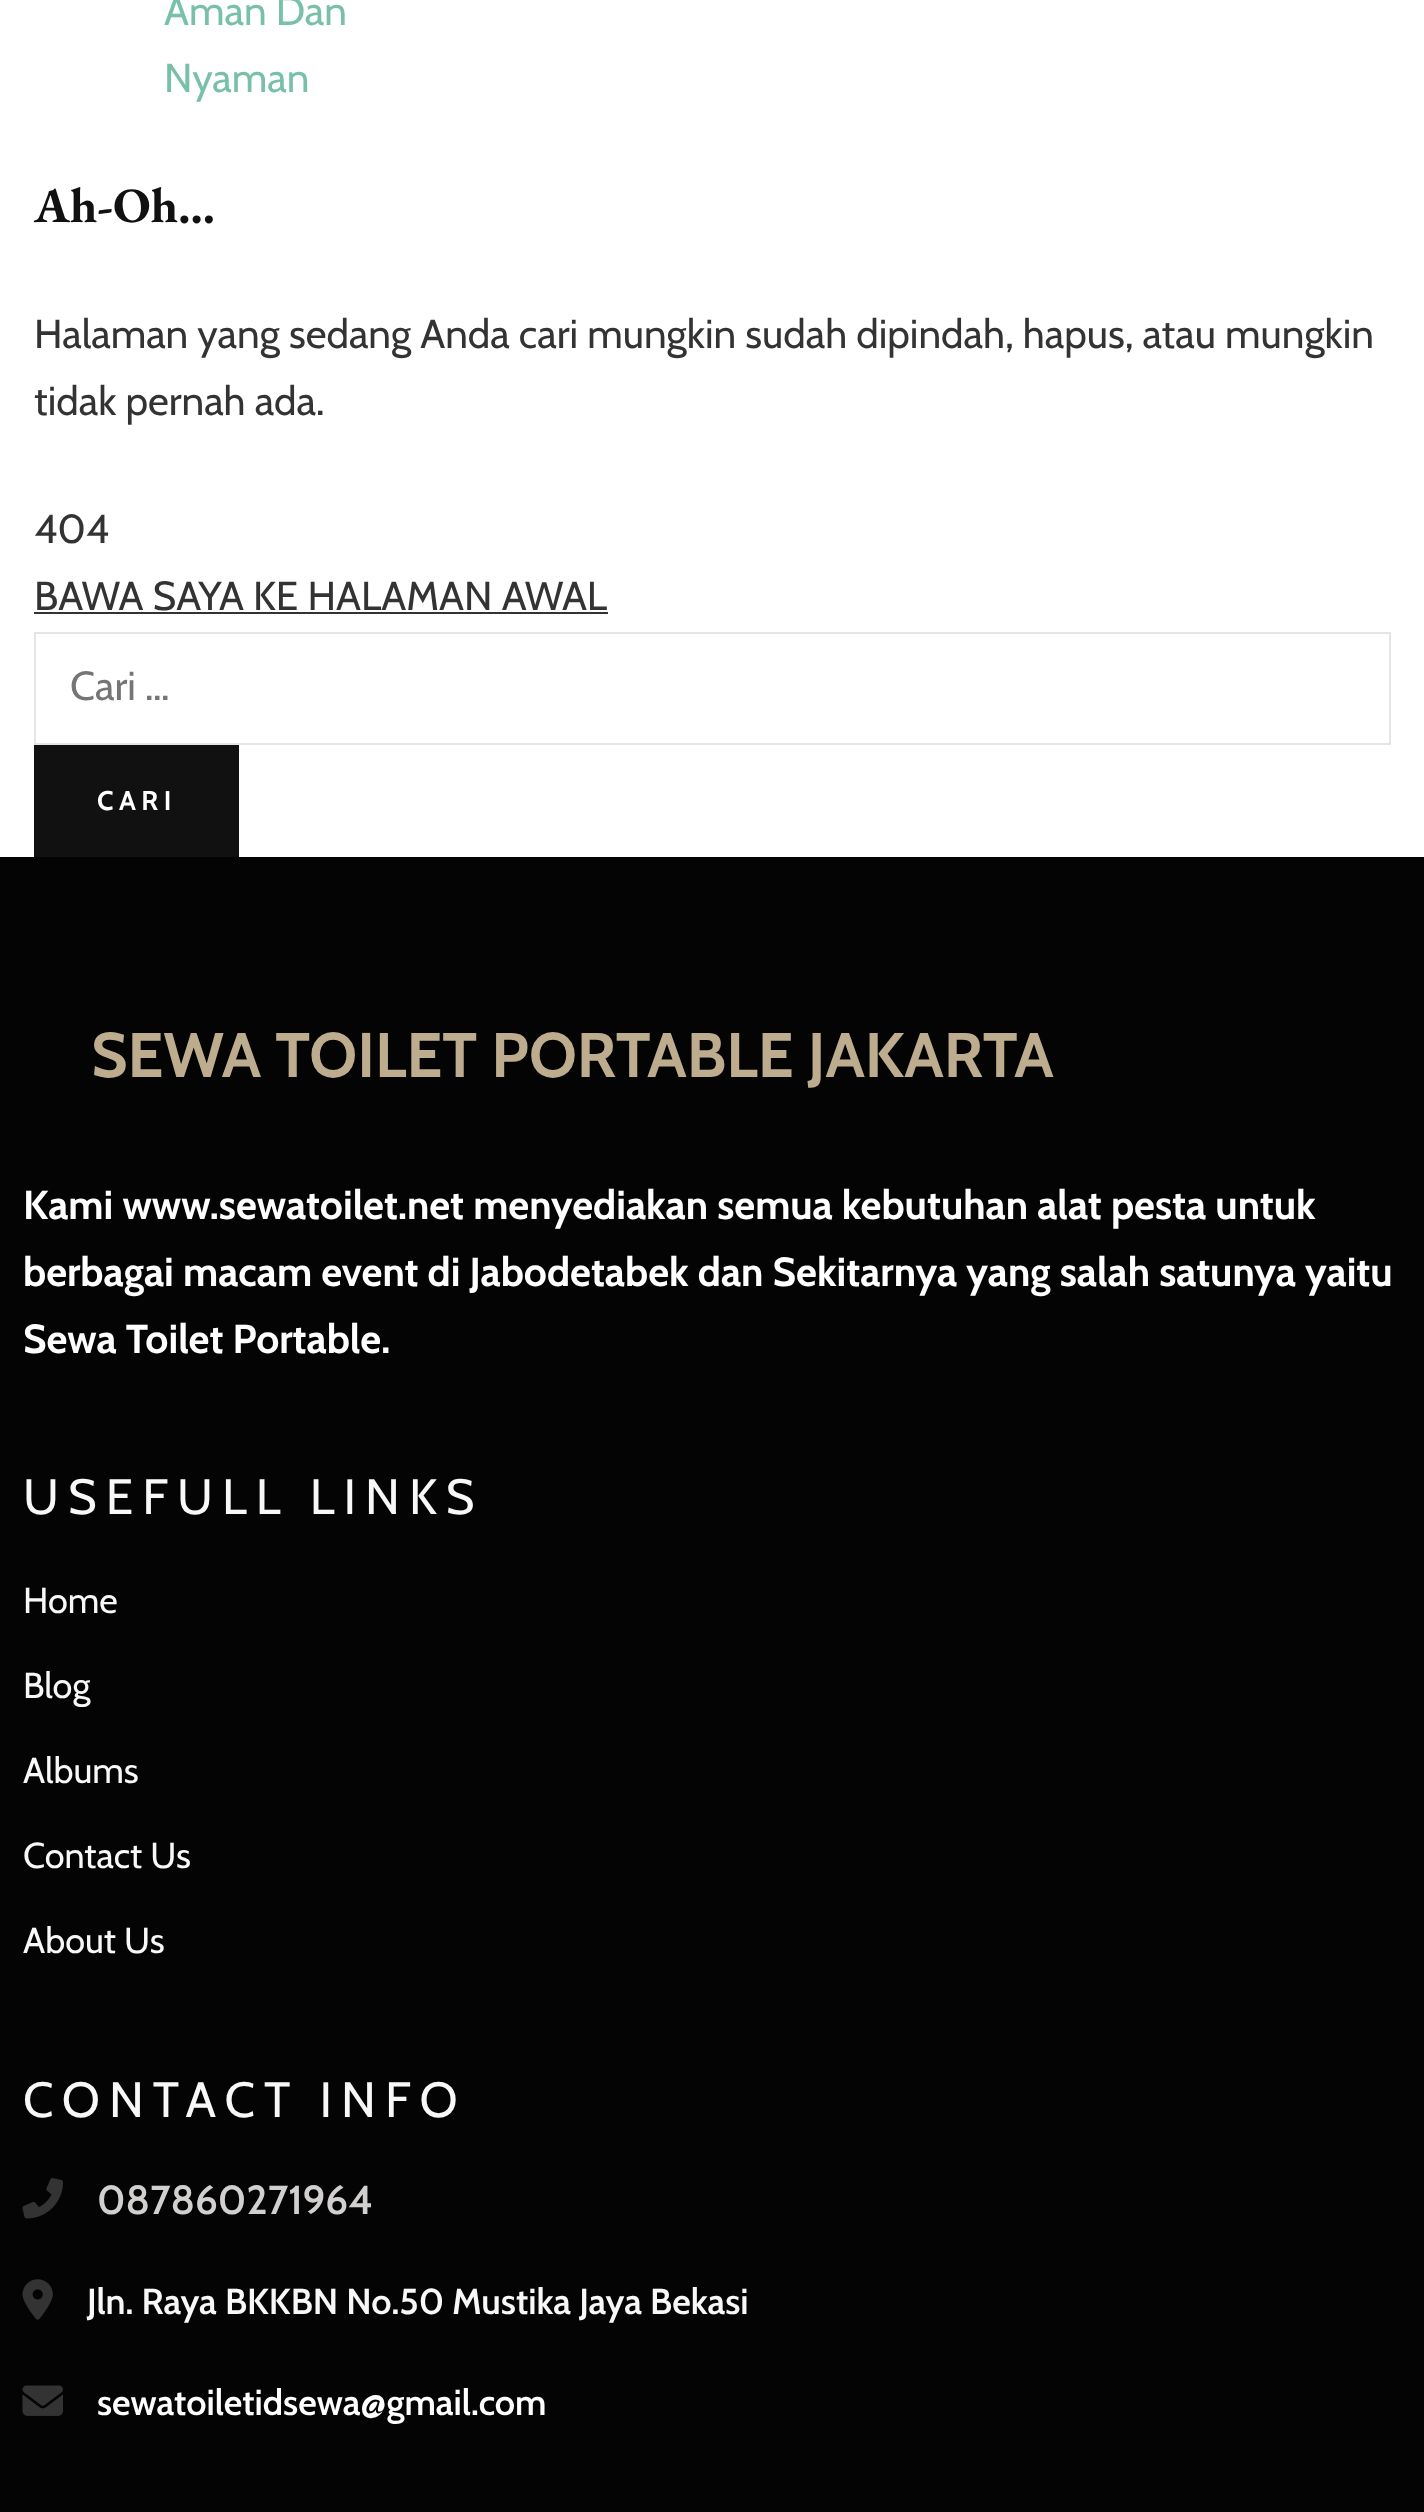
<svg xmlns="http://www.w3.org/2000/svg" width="1424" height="2512">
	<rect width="100%" height="100%" fill="#FFFFFF" />
	<g font-family="Cabin" font-size="40.5" fill="#78C0A8">
		<text x="164" y="25">Aman Dan</text>
		<text x="164" y="92">Nyaman</text>
	</g>
	<text x="34" y="222" font-family="EB Garamond" font-size="49.5" font-weight="700" fill="#111111">Ah-Oh...</text>
	<g font-family="Cabin" font-size="40.5" fill="#333333">
		<text x="34" y="348">Halaman yang sedang Anda cari mungkin sudah dipindah, hapus, atau mungkin</text>
		<text x="34" y="415">tidak pernah ada.</text>
		<text x="34" y="543">404</text>
		<text x="34" y="610">BAWA SAYA KE HALAMAN AWAL</text>
	</g>
	<rect x="34" y="612" width="574" height="2" fill="#333333" />
	<rect x="35" y="633" width="1355" height="111" fill="none" stroke="#E5E5E5" stroke-width="2" />
	<text x="70" y="700" font-family="Cabin" font-size="40.5" fill="#757575">Cari …</text>
	<rect x="34" y="745" width="205" height="112" fill="#111111" />
	<text x="97" y="810" font-family="Cabin" font-size="27" font-weight="700" letter-spacing="5.5" fill="#FFFFFF">CARI</text>
	<rect x="0" y="857" width="1424" height="1655" fill="#040404" />
	<text x="91" y="1077" font-family="Cabin" font-size="63" font-weight="700" fill="#BDAC8E">SEWA TOILET PORTABLE JAKARTA</text>
	<g font-family="Cabin" font-size="40.5" font-weight="700" fill="#FFFFFF">
		<text x="23" y="1219">Kami www.sewatoilet.net menyediakan semua kebutuhan alat pesta untuk</text>
		<text x="23" y="1286">berbagai macam event di Jabodetabek dan Sekitarnya yang salah satunya yaitu</text>
		<text x="23" y="1353">Sewa Toilet Portable.</text>
	</g>
	<text x="23" y="1514" font-family="Cabin" font-size="49.5" letter-spacing="9" fill="#F9F8F8">USEFULL LINKS</text>
	<g font-family="Cabin" font-size="36" fill="#F9F8F8">
		<text x="23" y="1613">Home</text>
		<text x="23" y="1698">Blog</text>
		<text x="23" y="1783">Albums</text>
		<text x="23" y="1868">Contact Us</text>
		<text x="23" y="1953">About Us</text>
	</g>
	<text x="23" y="2117" font-family="Cabin" font-size="49.5" letter-spacing="9" fill="#F9F8F8">CONTACT INFO</text>
	<image x="22" y="2178" width="41" height="41" href="assets/img1.png" />
	<text x="97" y="2214" font-family="Cabin" font-size="40.5" font-weight="600" fill="#D2CFCF">087860271964</text>
	<image x="22" y="2279" width="31" height="41" href="assets/img2.png" />
	<text x="87" y="2314" font-family="Cabin" font-size="36" font-weight="600" fill="#F9F8F8">Jln. Raya BKKBN No.50 Mustika Jaya Bekasi</text>
	<image x="22" y="2385" width="41" height="31" href="assets/img3.png" />
	<text x="97" y="2415" font-family="Cabin" font-size="36" font-weight="600" fill="#FFFFFF">sewatoiletidsewa@gmail.com</text>
</svg>
